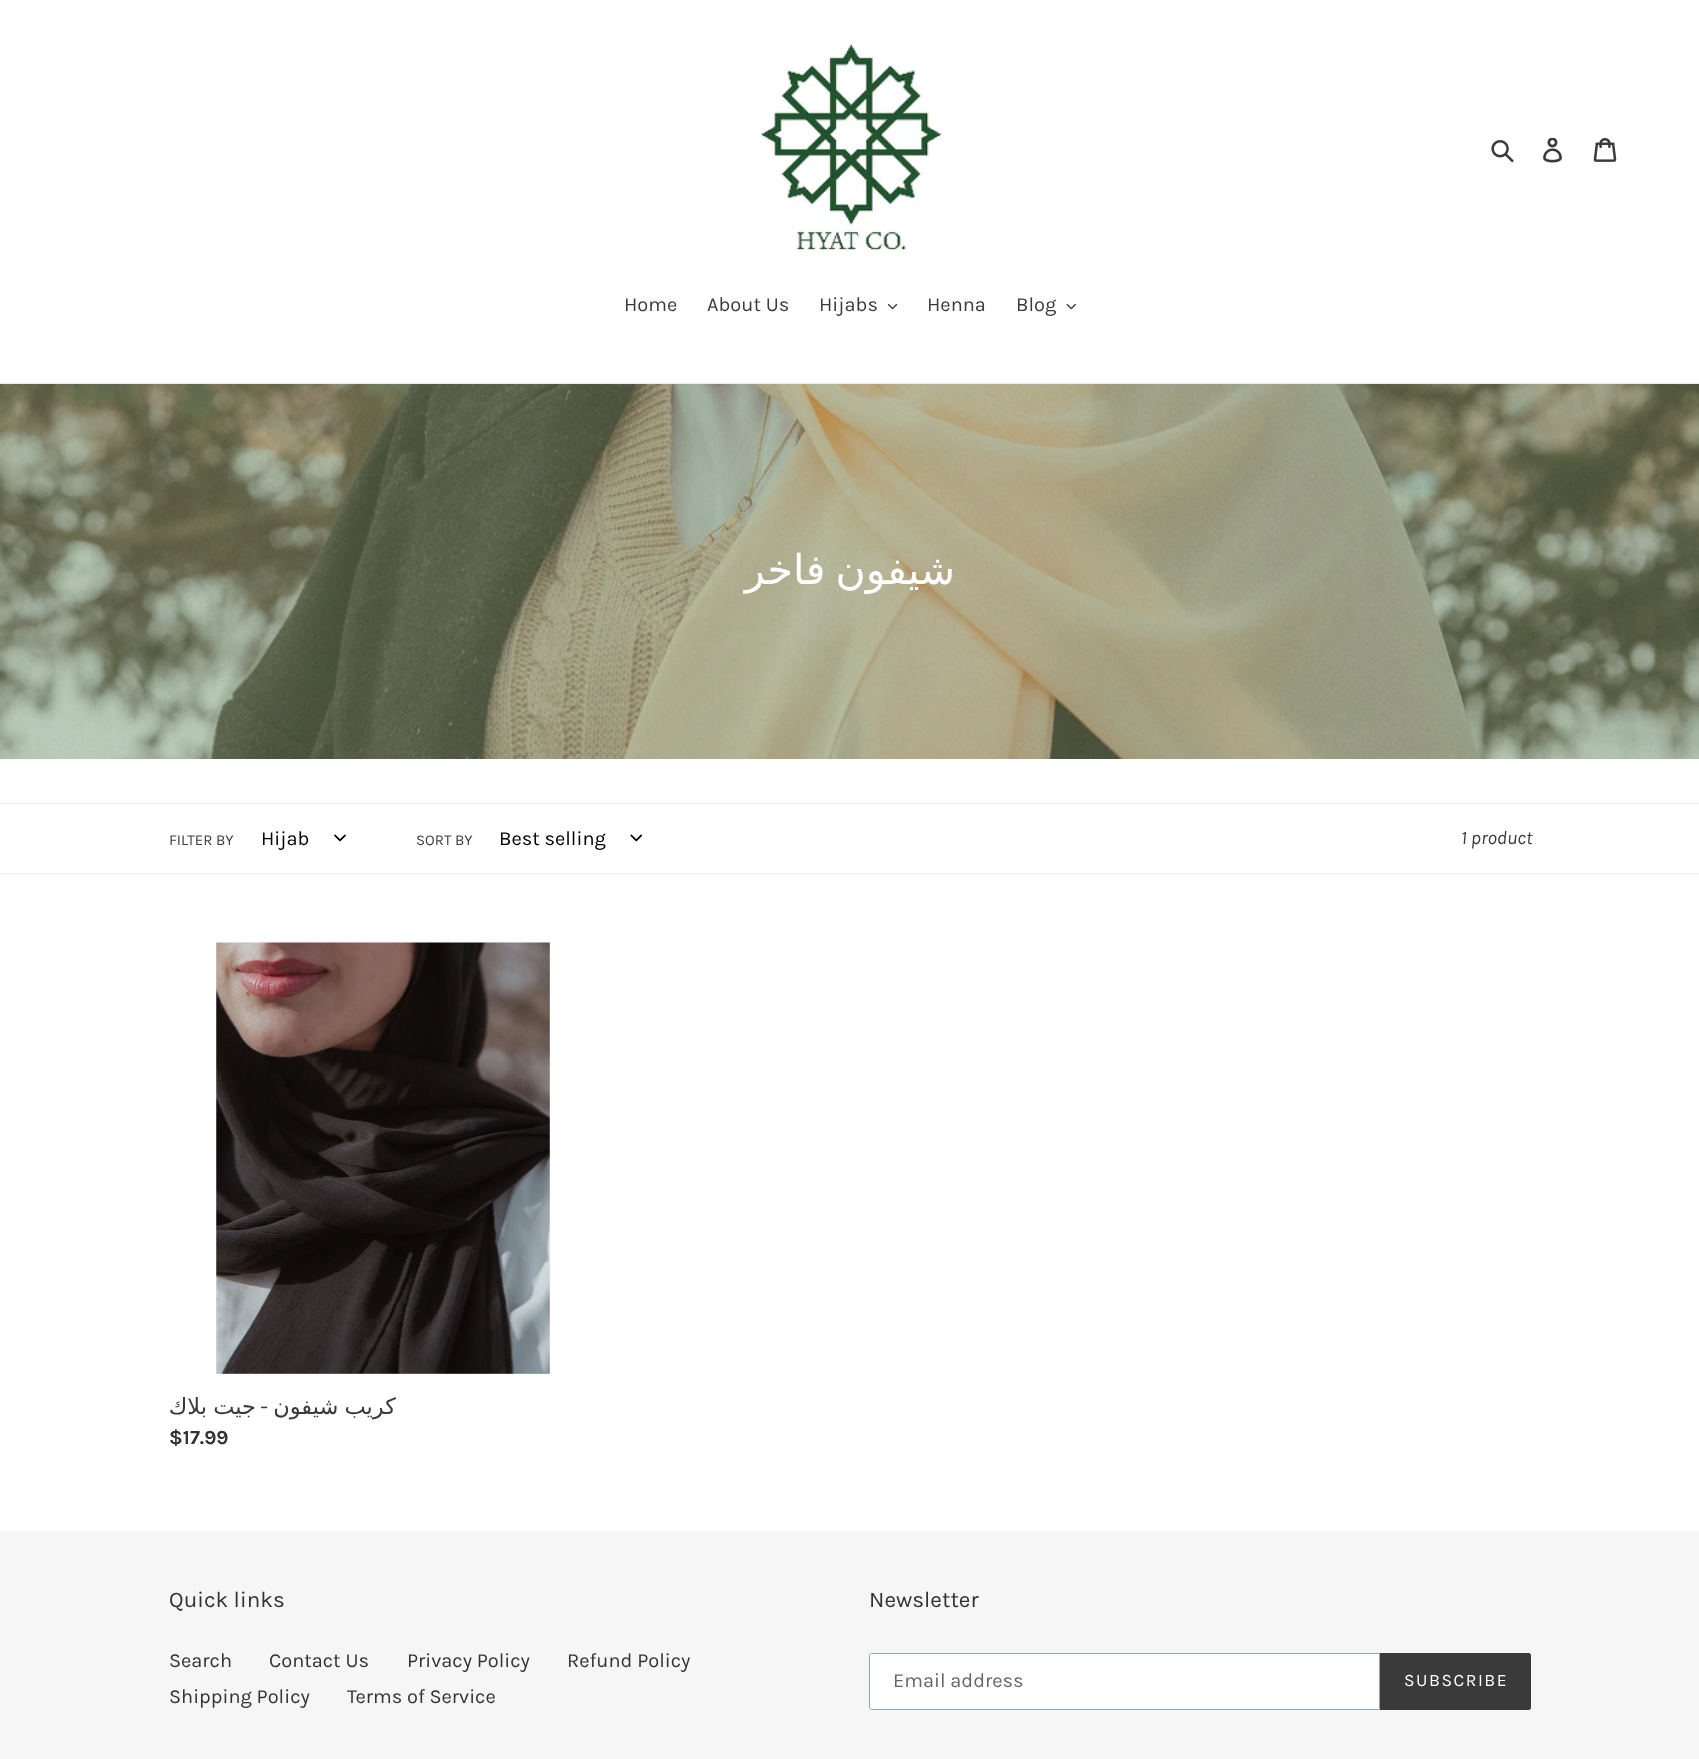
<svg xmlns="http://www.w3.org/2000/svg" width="1699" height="1759">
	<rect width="100%" height="100%" fill="#FFFFFF" />
	<image x="760" y="38" width="184" height="214" href="assets/img1.png" />
	<image x="1491" y="140" width="23" height="23" href="assets/img2.png" />
	<image x="1543" y="138" width="19" height="25" href="assets/img3.png" />
	<image x="1593" y="138" width="24" height="24" href="assets/img4.png" />
	<rect x="0" y="383" width="1699" height="1" fill="#EBEBEB" />
	<g font-family="Karla" font-size="20" fill="#3A3A3A">
		<text x="624" y="311">Home</text>
		<text x="707" y="311">About Us</text>
		<text x="819" y="311">Hijabs</text>
	</g>
	<image x="888" y="303" width="10" height="7" href="assets/img5.png" />
	<g font-family="Karla" font-size="20" fill="#3A3A3A">
		<text x="927" y="311">Henna</text>
		<text x="1016" y="311">Blog</text>
	</g>
	<image x="1066" y="303" width="10" height="7" href="assets/img6.png" />
	<image x="0" y="384" width="1699" height="375" href="assets/img7.png" />
	<text x="955" y="584" word-spacing="-3" font-family="DejaVu Sans" font-size="41.25" direction="rtl" fill="#FFFFFF">شيفون فاخر</text>
	<rect x="0" y="803" width="1699" height="1" fill="#EBEBEB" />
	<rect x="0" y="873" width="1699" height="1" fill="#EBEBEB" />
	<text x="169" y="845" font-family="Karla" font-size="15" fill="#3A3A3A">FILTER BY</text>
	<text x="261" y="845" font-family="Karla" font-size="20" fill="#000000">Hijab</text>
	<image x="334" y="834" width="12" height="8" href="assets/img8.png" />
	<text x="416" y="845" font-family="Karla" font-size="15" fill="#3A3A3A">SORT BY</text>
	<text x="499" y="845" font-family="Karla" font-size="20" fill="#000000">Best selling</text>
	<image x="630" y="834" width="13" height="8" href="assets/img9.png" />
	<text x="1461" y="844" font-family="Karla" font-size="19" font-style="italic" fill="#3A3A3A">1 product</text>
	<image x="216" y="942" width="334" height="432" href="assets/img10.png" />
	<text x="256" y="1414" word-spacing="-1" font-family="DejaVu Sans" font-size="22.5" direction="rtl" fill="#3A3A3A">جيت بلاك</text>
	<text x="268" y="1414" font-family="Karla" font-size="22.5" direction="rtl" fill="#3A3A3A">-</text>
	<text x="396" y="1414" word-spacing="-1" font-family="DejaVu Sans" font-size="22.5" direction="rtl" fill="#3A3A3A">كريب شيفون</text>
	<text x="169" y="1444" font-family="Karla" font-size="20" font-weight="700" fill="#333232">$17.99</text>
	<rect x="0" y="1531" width="1699" height="228" fill="#F6F6F6" />
	<text x="169" y="1607" font-family="Karla" font-size="22.5" fill="#333232">Quick links</text>
	<g font-family="Karla" font-size="20" fill="#333232">
		<text x="169" y="1667">Search</text>
		<text x="269" y="1667">Contact Us</text>
		<text x="407" y="1667">Privacy Policy</text>
		<text x="567" y="1667">Refund Policy</text>
		<text x="169" y="1703">Shipping Policy</text>
		<text x="347" y="1703">Terms of Service</text>
	</g>
	<text x="869" y="1607" font-family="Karla" font-size="22.5" fill="#333232">Newsletter</text>
	<path d="M871.5 1653.5H1379.5V1709.5H871.5C870.5 1709.5 869.5 1708.5 869.5 1707.5V1655.5C869.5 1654.5 870.5 1653.5 871.5 1653.5Z" fill="#FFFFFF" stroke="#93B17D" />
	<text x="893" y="1687" font-family="Karla" font-size="20" fill="#666666">Email address</text>
	<path d="M1380 1653H1528.5C1530 1653 1531 1654 1531 1655.5V1707.5C1531 1709 1530 1710 1528.5 1710H1380Z" fill="#3A3A3A" />
	<text x="1404" y="1686" font-family="Karla" font-size="17.5" letter-spacing="1.5" fill="#FFFFFF">SUBSCRIBE</text>
</svg>
